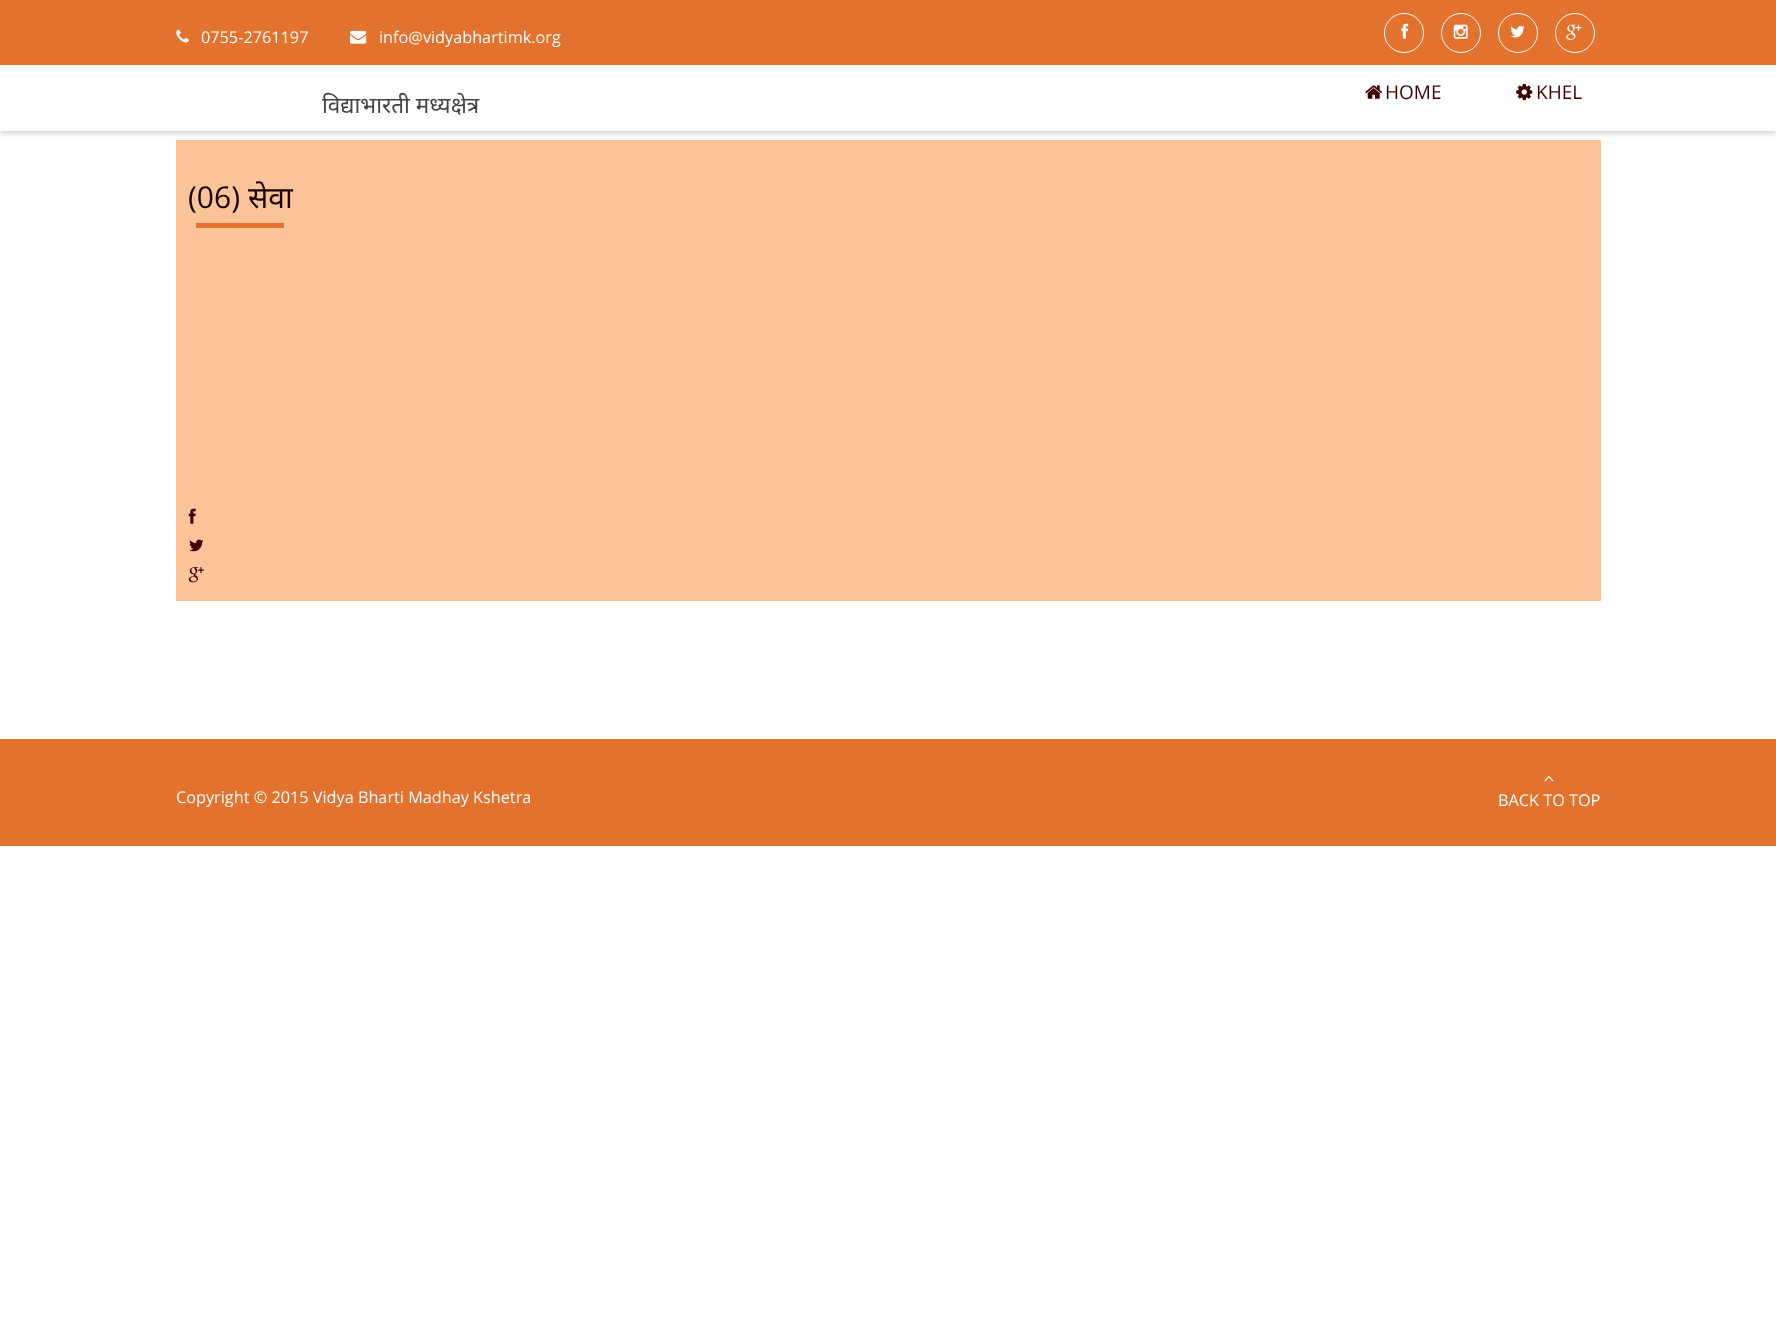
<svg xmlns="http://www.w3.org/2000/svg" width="1776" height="1324">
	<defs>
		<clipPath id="clip1"><rect x="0" y="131" width="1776" height="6" /></clipPath>
	</defs>
	<rect width="100%" height="100%" fill="#FFFFFF" />
	<rect x="0" y="0" width="1776" height="65" fill="#E3722E" />
	<image x="176" y="29" width="13" height="14" href="assets/img1.png" />
	<text x="201" y="43" font-family="Open Sans" font-size="16.25" fill="#FFFFFF">0755-2761197</text>
	<image x="350" y="30" width="17" height="14" href="assets/img2.png" />
	<text x="379" y="43" font-family="Open Sans" font-size="16.25" fill="#FFFFFF">info@vidyabhartimk.org</text>
	<circle cx="1404" cy="33" r="19.5" fill="none" stroke="#FFFFFF" />
	<image x="1401" y="23" width="8" height="16" href="assets/img3.png" />
	<circle cx="1461" cy="33" r="19.5" fill="none" stroke="#FFFFFF" />
	<image x="1453" y="24" width="15" height="15" href="assets/img4.png" />
	<circle cx="1518" cy="33" r="19.5" fill="none" stroke="#FFFFFF" />
	<image x="1510" y="25" width="15" height="13" href="assets/img5.png" />
	<circle cx="1575" cy="33" r="19.5" fill="none" stroke="#FFFFFF" />
	<image x="1566" y="24" width="16" height="16" href="assets/img6.png" />
	<rect x="176" y="140" width="1425" height="461" fill="#FAC498" />
	<g clip-path="url(#clip1)">
		<rect x="0" y="68" width="1776" height="66" fill="#010101" fill-opacity="0.15" filter="blur(2.5px)" />
	</g>
	<text x="322" y="113" font-family="Noto Sans" font-size="22.5" fill="#444444">विद्याभारती मध्यक्षेत्र</text>
	<image x="1365" y="85" width="18" height="14" href="assets/img7.png" />
	<text x="1385" y="99" font-family="Open Sans" font-size="19" fill="#400000">HOME</text>
	<image x="1516" y="84" width="17" height="17" href="assets/img8.png" />
	<text x="1536" y="99" font-family="Open Sans" font-size="19" fill="#400000">KHEL</text>
	<text x="188" y="208" font-family="Open Sans" font-size="30" fill="#190202">(06)</text>
	<text x="248" y="208" font-family="Noto Sans" font-size="30" fill="#190202">सेवा</text>
	<rect x="196" y="223" width="88" height="5" fill="#E3722E" />
	<image x="188" y="508" width="8" height="16" href="assets/img9.png" />
	<image x="189" y="539" width="15" height="13" href="assets/img10.png" />
	<image x="188" y="567" width="16" height="16" href="assets/img11.png" />
	<rect x="0" y="739" width="1776" height="107" fill="#E3722E" />
	<text x="176" y="803" font-family="Open Sans" font-size="16.25" fill="#FFFFFF">Copyright © 2015 Vidya Bharti Madhay Kshetra</text>
	<image x="1544" y="776" width="10" height="6" href="assets/img12.png" />
	<text x="1498" y="806" font-family="Open Sans" font-size="16.25" fill="#FFFFFF">BACK TO TOP</text>
</svg>
